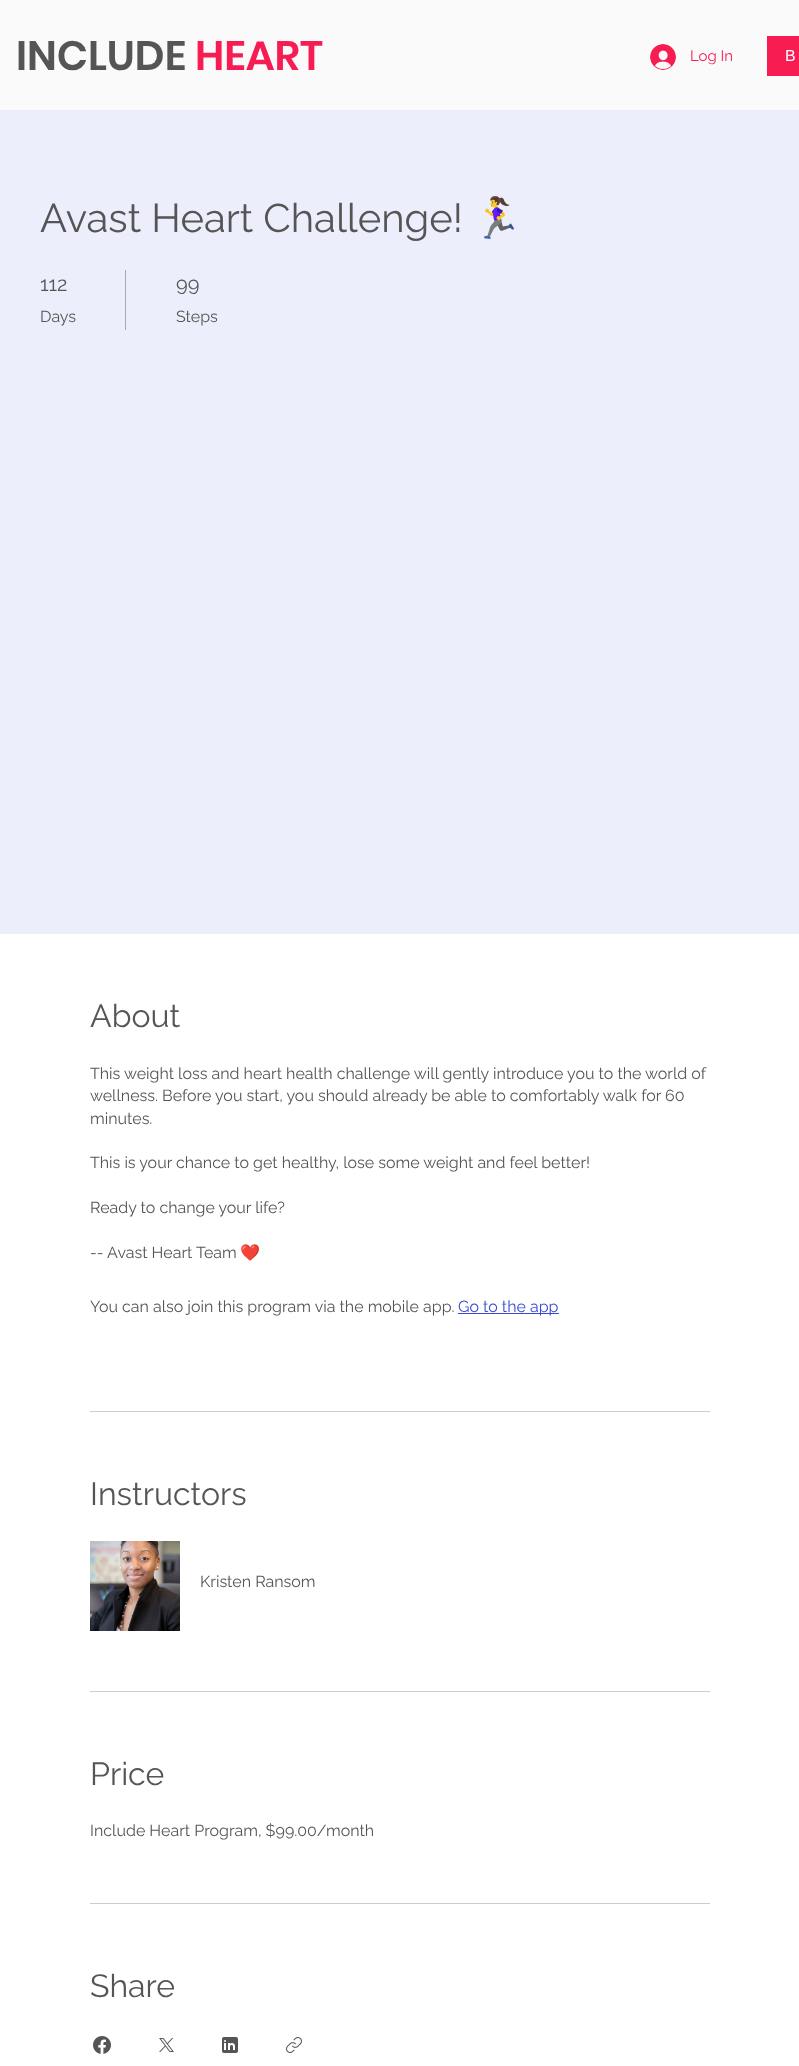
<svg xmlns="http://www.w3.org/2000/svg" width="799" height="2066">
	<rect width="100%" height="100%" fill="#FAFAFA" />
	<text x="16" y="70" font-family="Poppins" font-size="41" font-weight="600" fill="#555555">INCLUDE</text>
	<text x="195" y="70" font-family="Poppins" font-size="41" font-weight="600" fill="#F71C52">HEART</text>
	<image x="650" y="44" width="26" height="26" href="assets/img1.png" />
	<text x="690" y="61" font-family="Raleway" font-size="15" fill="#F71C52">Log In</text>
	<rect x="767" y="36" width="32" height="40" fill="#F71C52" />
	<text x="785" y="61" font-family="Liberation Sans" font-size="16" letter-spacing="2" fill="#FFFFFF">B</text>
	<rect x="0" y="934" width="799" height="1132" fill="#FFFFFF" />
	<rect x="0" y="110" width="799" height="824" fill="#ECEEFB" />
	<text x="40" y="232" font-family="Raleway" font-size="40" fill="#555555">Avast Heart Challenge!</text>
	<text x="472" y="232" font-family="Noto Color Emoji" font-size="40" fill="#555555">🏃‍♀️</text>
	<text x="40" y="291" font-family="Raleway" font-size="20" fill="#555555">112</text>
	<rect x="125" y="270" width="1" height="60" fill="#AAAAAA" />
	<text x="40" y="322" font-family="Raleway" font-size="16" fill="#555555">Days</text>
	<text x="176" y="291" font-family="Raleway" font-size="20" fill="#555555">99</text>
	<text x="176" y="322" font-family="Raleway" font-size="16" fill="#555555">Steps</text>
	<rect x="90" y="1411" width="620" height="1" fill="#CCCCCC" />
	<text x="90" y="1027" font-family="Raleway" font-size="32" fill="#555555">About</text>
	<g font-family="Raleway" font-size="16" fill="#555555">
		<text x="90" y="1079">This weight loss and heart health challenge will gently introduce you to the world of</text>
		<text x="90" y="1101">wellness. Before you start, you should already be able to comfortably walk for 60</text>
		<text x="90" y="1124">minutes.</text>
		<text x="90" y="1168">This is your chance to get healthy, lose some weight and feel better!</text>
		<text x="90" y="1213">Ready to change your life?</text>
		<text x="90" y="1258">-- Avast Heart Team</text>
	</g>
	<text x="240" y="1258" font-family="Noto Color Emoji" font-size="16" fill="#555555">❤️</text>
	<text x="90" y="1312" font-family="Raleway" font-size="16" fill="#555555">You can also join this program via the mobile app.</text>
	<rect x="458" y="1313" width="101" height="1" fill="#384AD3" />
	<text x="458" y="1312" font-family="Raleway" font-size="16" fill="#384AD3">Go to the app</text>
	<rect x="90" y="1691" width="620" height="1" fill="#CCCCCC" />
	<text x="90" y="1505" font-family="Raleway" font-size="32" fill="#555555">Instructors</text>
	<image x="90" y="1541" width="90" height="90" href="assets/img2.png" />
	<text x="200" y="1587" font-family="Raleway" font-size="16" fill="#555555">Kristen Ransom</text>
	<rect x="90" y="1903" width="620" height="1" fill="#CCCCCC" />
	<text x="90" y="1785" font-family="Raleway" font-size="32" fill="#555555">Price</text>
	<text x="90" y="1836" font-family="Raleway" font-size="16" fill="#555555">Include Heart Program, $99.00/month</text>
	<text x="90" y="1997" font-family="Raleway" font-size="32" fill="#555555">Share</text>
	<image x="93" y="2036" width="18" height="18" href="assets/img3.png" />
	<image x="159" y="2038" width="15" height="14" href="assets/img4.png" />
	<image x="222" y="2037" width="16" height="16" href="assets/img5.png" />
	<image x="286" y="2037" width="16" height="16" href="assets/img6.png" />
</svg>
